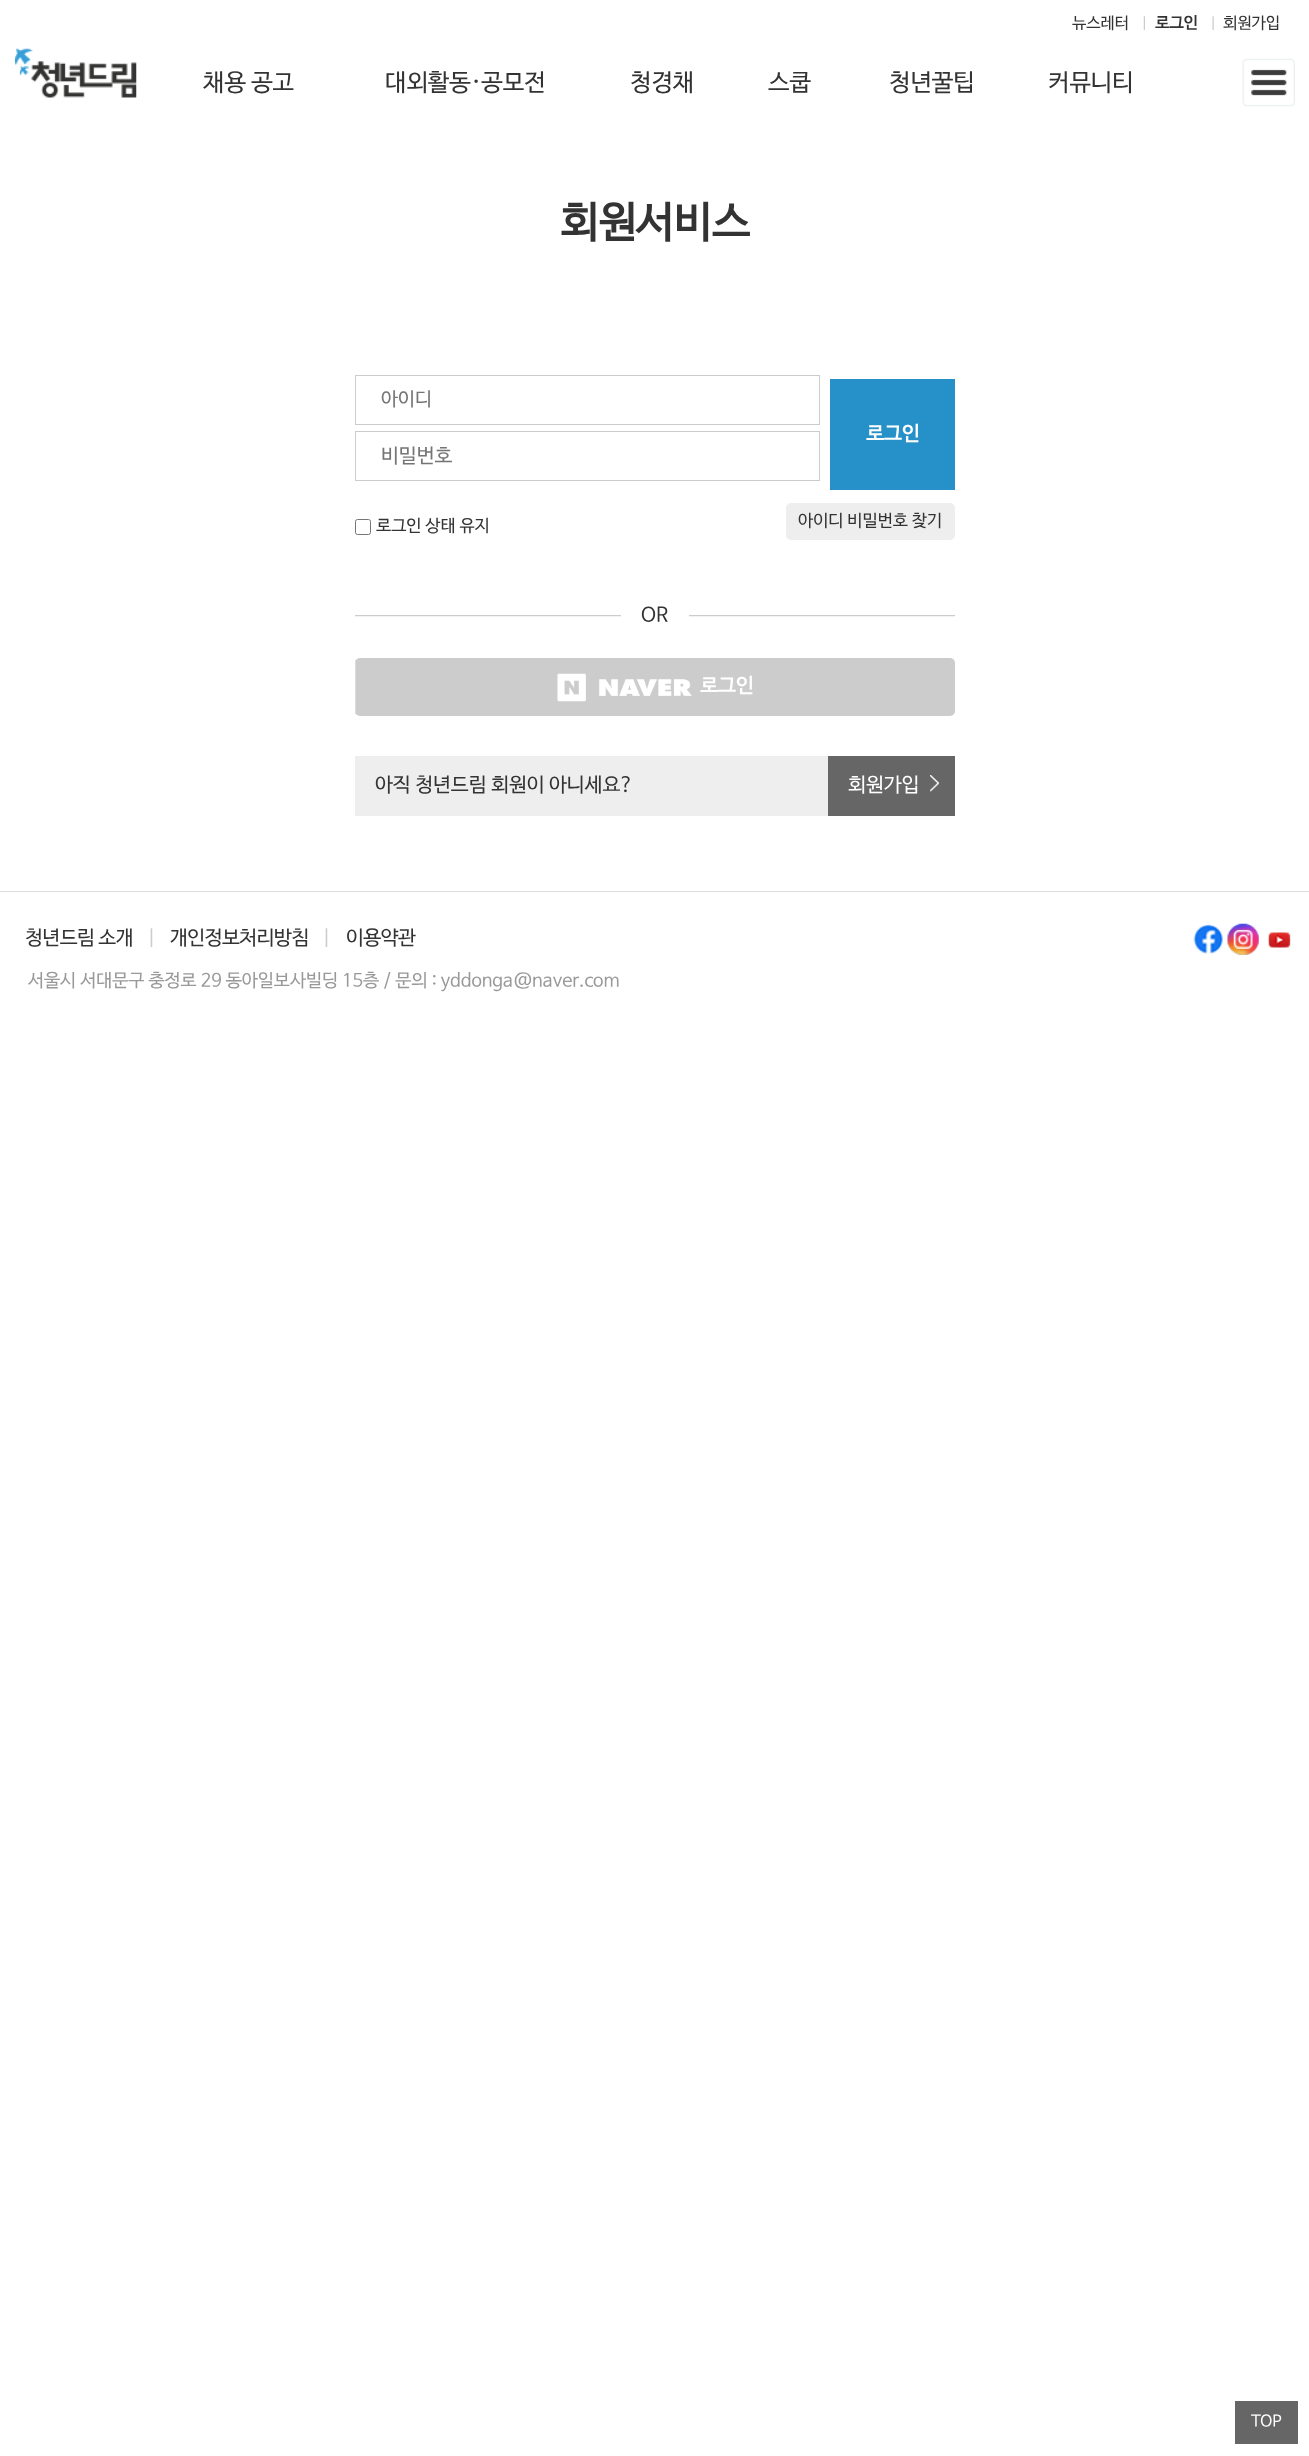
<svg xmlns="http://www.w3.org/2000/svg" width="1309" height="2456">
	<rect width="100%" height="100%" fill="#FFFFFF" />
	<text x="1072" y="28" font-family="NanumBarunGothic" font-size="16" fill="#333333">뉴스레터</text>
	<image x="1143" y="16" width="2" height="14" href="assets/img1.png" />
	<text x="1155" y="28" font-family="NanumBarunGothic" font-size="16" font-weight="700" fill="#333333">로그인</text>
	<image x="1212" y="16" width="2" height="14" href="assets/img2.png" />
	<text x="1223" y="28" font-family="NanumBarunGothic" font-size="16" fill="#333333">회원가입</text>
	<image x="15" y="48" width="122" height="50" href="assets/img3.png" />
	<g font-family="NanumBarunGothic" font-size="24" fill="#333333">
		<text x="203" y="90">채용 공고</text>
		<text x="385" y="90">대외활동·공모전</text>
		<text x="630" y="90">청경채</text>
		<text x="768" y="90">스쿱</text>
		<text x="889" y="90">청년꿀팁</text>
		<text x="1048" y="90">커뮤니티</text>
	</g>
	<image x="1242" y="58" width="53" height="49" href="assets/img4.png" />
	<text x="560" y="236" font-family="NanumBarunGothic" font-size="42.5" font-weight="700" fill="#333333">회원서비스</text>
	<rect x="355.5" y="375.5" width="464" height="49" fill="none" stroke="#CCCCCC" />
	<text x="381" y="405" font-family="NanumBarunGothic" font-size="19" fill="#757575">아이디</text>
	<rect x="355.5" y="431.5" width="464" height="49" fill="none" stroke="#CCCCCC" />
	<text x="381" y="462" font-family="NanumBarunGothic" font-size="20" fill="#757575">비밀번호</text>
	<rect x="830" y="379" width="125" height="111" fill="#2691C8" />
	<text x="866" y="440" font-family="NanumBarunGothic" font-size="20" font-weight="700" fill="#FFFFFF">로그인</text>
	<rect x="355.5" y="519.5" width="15" height="15" rx="2" fill="none" stroke="#767676" />
	<text x="376" y="531" font-family="NanumBarunGothic" font-size="17" fill="#333333">로그인 상태 유지</text>
	<rect x="786" y="503" width="169" height="37" rx="5" fill="#EEEEEE" />
	<text x="798" y="526" font-family="NanumBarunGothic" font-size="17" fill="#333333">아이디 비밀번호 찾기</text>
	<image x="355" y="615" width="600" height="2" href="assets/img5.png" />
	<rect x="621" y="615" width="68" height="2" fill="#FFFFFF" />
	<text x="641" y="621" font-family="NanumBarunGothic" font-size="20" fill="#333333">OR</text>
	<rect x="355" y="658" width="600" height="58" rx="5" fill="#CCCCCC" />
	<rect x="355" y="660" width="1" height="54" fill="#DDDDDD" />
	<image x="557" y="673" width="135" height="29" href="assets/img6.png" />
	<text x="700" y="692" font-family="NanumBarunGothic" font-size="20" font-weight="700" fill="#FFFFFF">로그인</text>
	<rect x="355" y="756" width="473" height="60" fill="#EEEEEE" />
	<text x="375" y="791" font-family="NanumBarunGothic" font-size="20" fill="#333333">아직 청년드림 회원이 아니세요?</text>
	<rect x="828" y="756" width="127" height="60" fill="#666666" />
	<image x="930" y="775" width="9" height="17" href="assets/img7.png" />
	<text x="848" y="791" font-family="NanumBarunGothic" font-size="20" fill="#FFFFFF">회원가입</text>
	<rect x="0" y="891" width="1309" height="1" fill="#DDDDDD" />
	<text x="25" y="944" font-family="NanumBarunGothic" font-size="20" letter-spacing="-0.5" fill="#333333">청년드림 소개</text>
	<text x="147" y="944" font-family="NanumBarunGothic" font-size="20" fill="#CCCCCC">|</text>
	<text x="170" y="944" font-family="NanumBarunGothic" font-size="20" letter-spacing="-0.5" fill="#333333">개인정보처리방침</text>
	<text x="322" y="944" font-family="NanumBarunGothic" font-size="20" fill="#CCCCCC">|</text>
	<text x="346" y="944" font-family="NanumBarunGothic" font-size="20" letter-spacing="-0.5" fill="#333333">이용약관</text>
	<text x="28" y="986" font-family="NanumBarunGothic" font-size="18" fill="#999999">서울시 서대문구 충정로 29 동아일보사빌딩 15층 / 문의 : yddonga@naver.com</text>
	<image x="1193" y="924" width="30" height="30" href="assets/img8.png" />
	<image x="1227" y="923" width="32" height="32" href="assets/img9.png" />
	<image x="1268" y="932" width="23" height="16" href="assets/img10.png" />
	<rect x="1235" y="2401" width="63" height="43" fill="#666666" />
	<text x="1251" y="2426" font-family="NanumBarunGothic" font-size="16" fill="#FFFFFF">TOP</text>
</svg>
